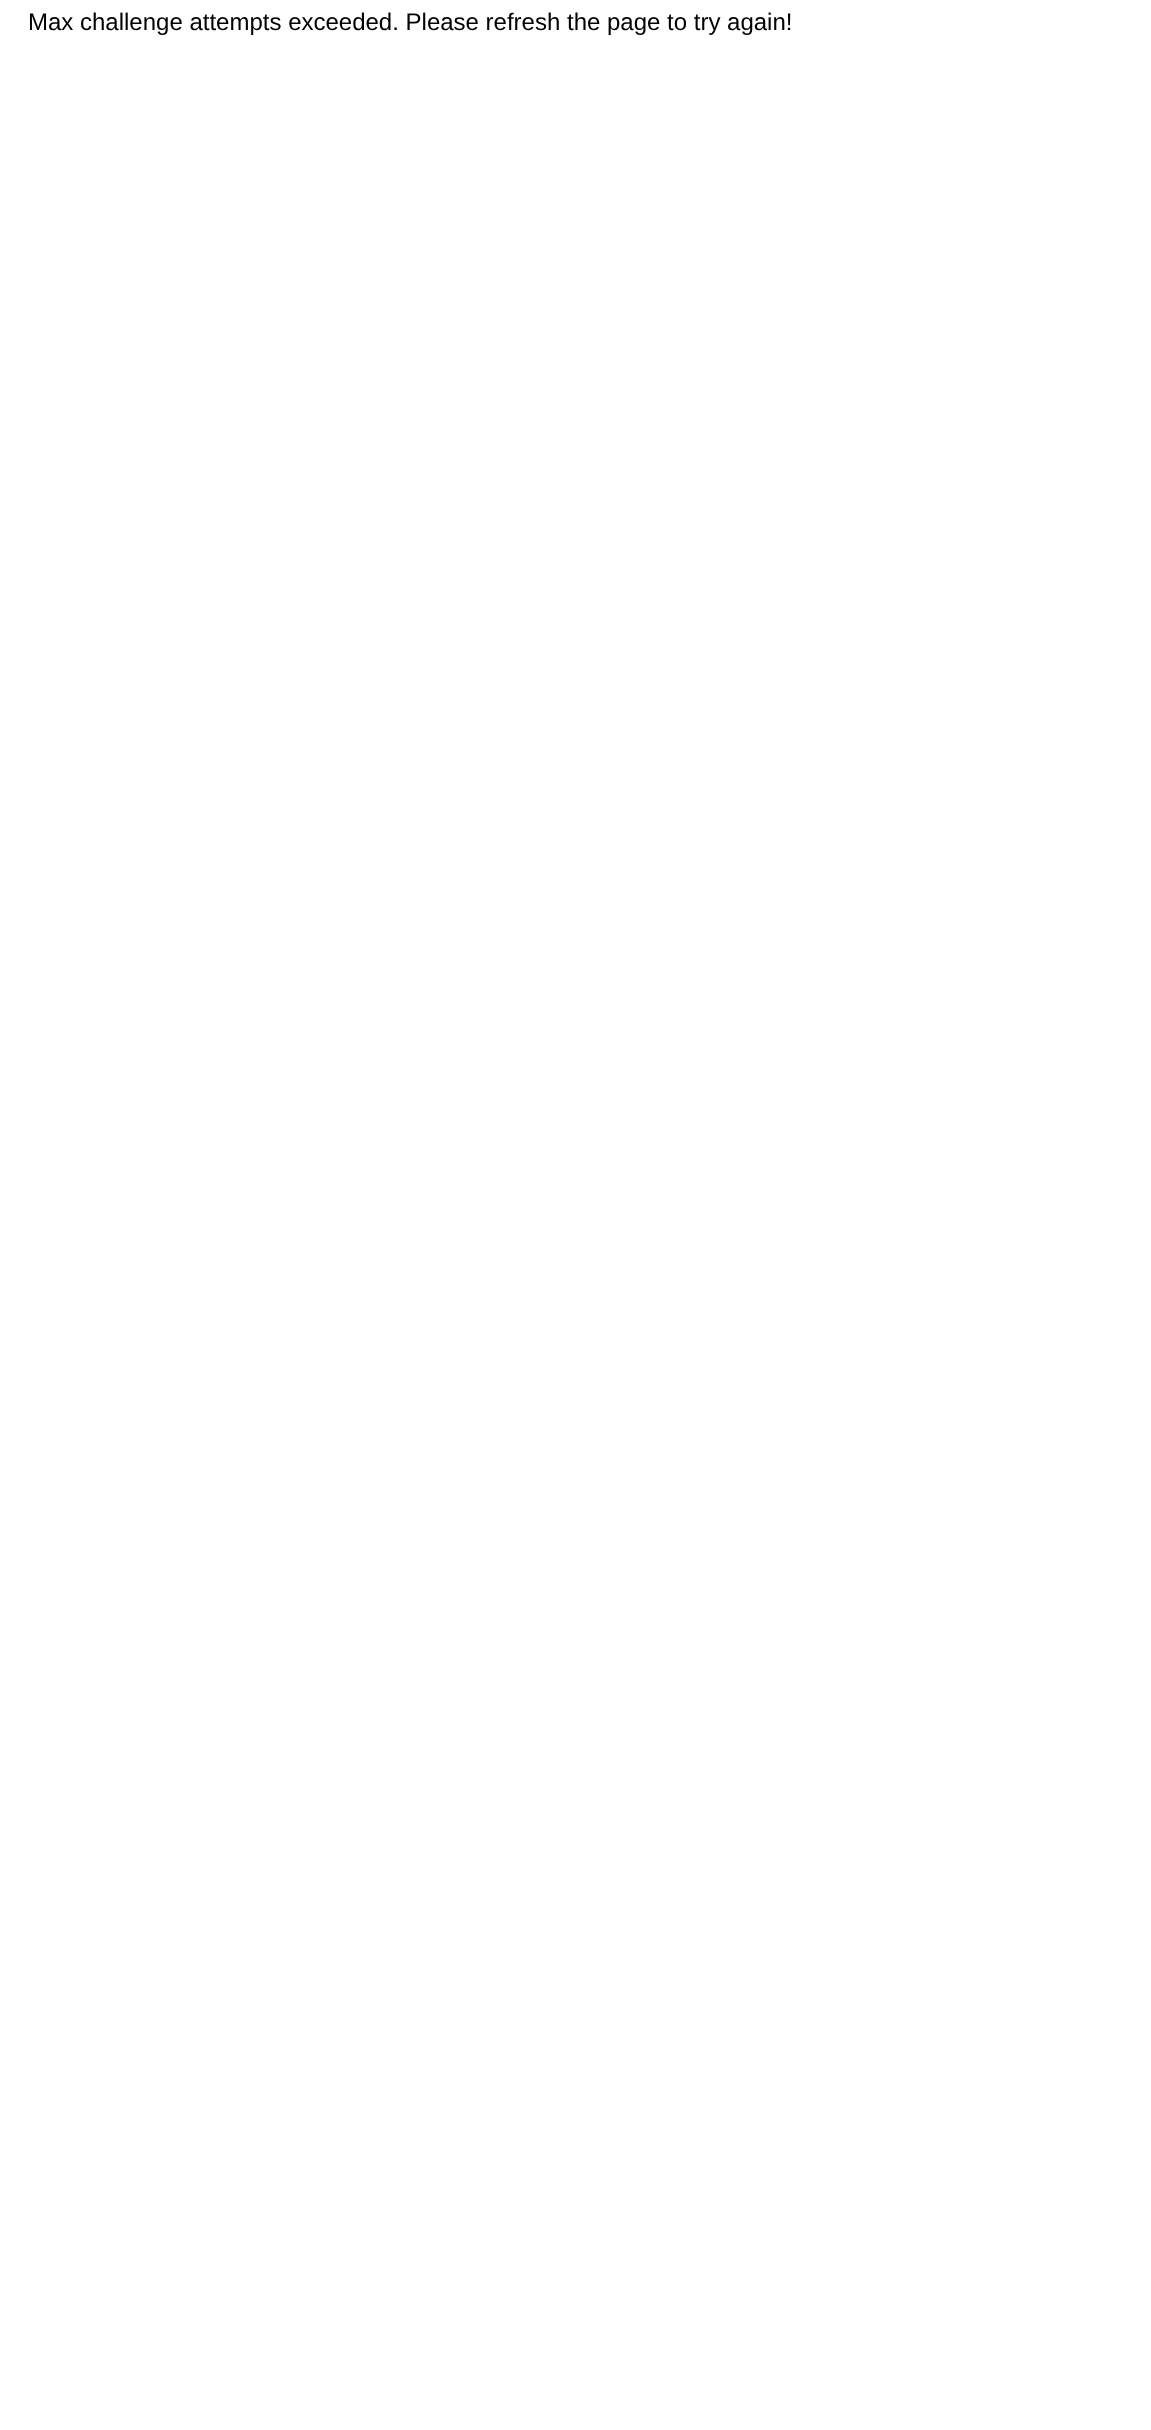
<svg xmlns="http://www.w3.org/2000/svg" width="1151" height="2430">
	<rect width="100%" height="100%" fill="#FFFFFF" />
	<text x="28" y="30" font-family="Liberation Sans" font-size="24" fill="#000000">Max challenge attempts exceeded. Please refresh the page to try again!</text>
</svg>
